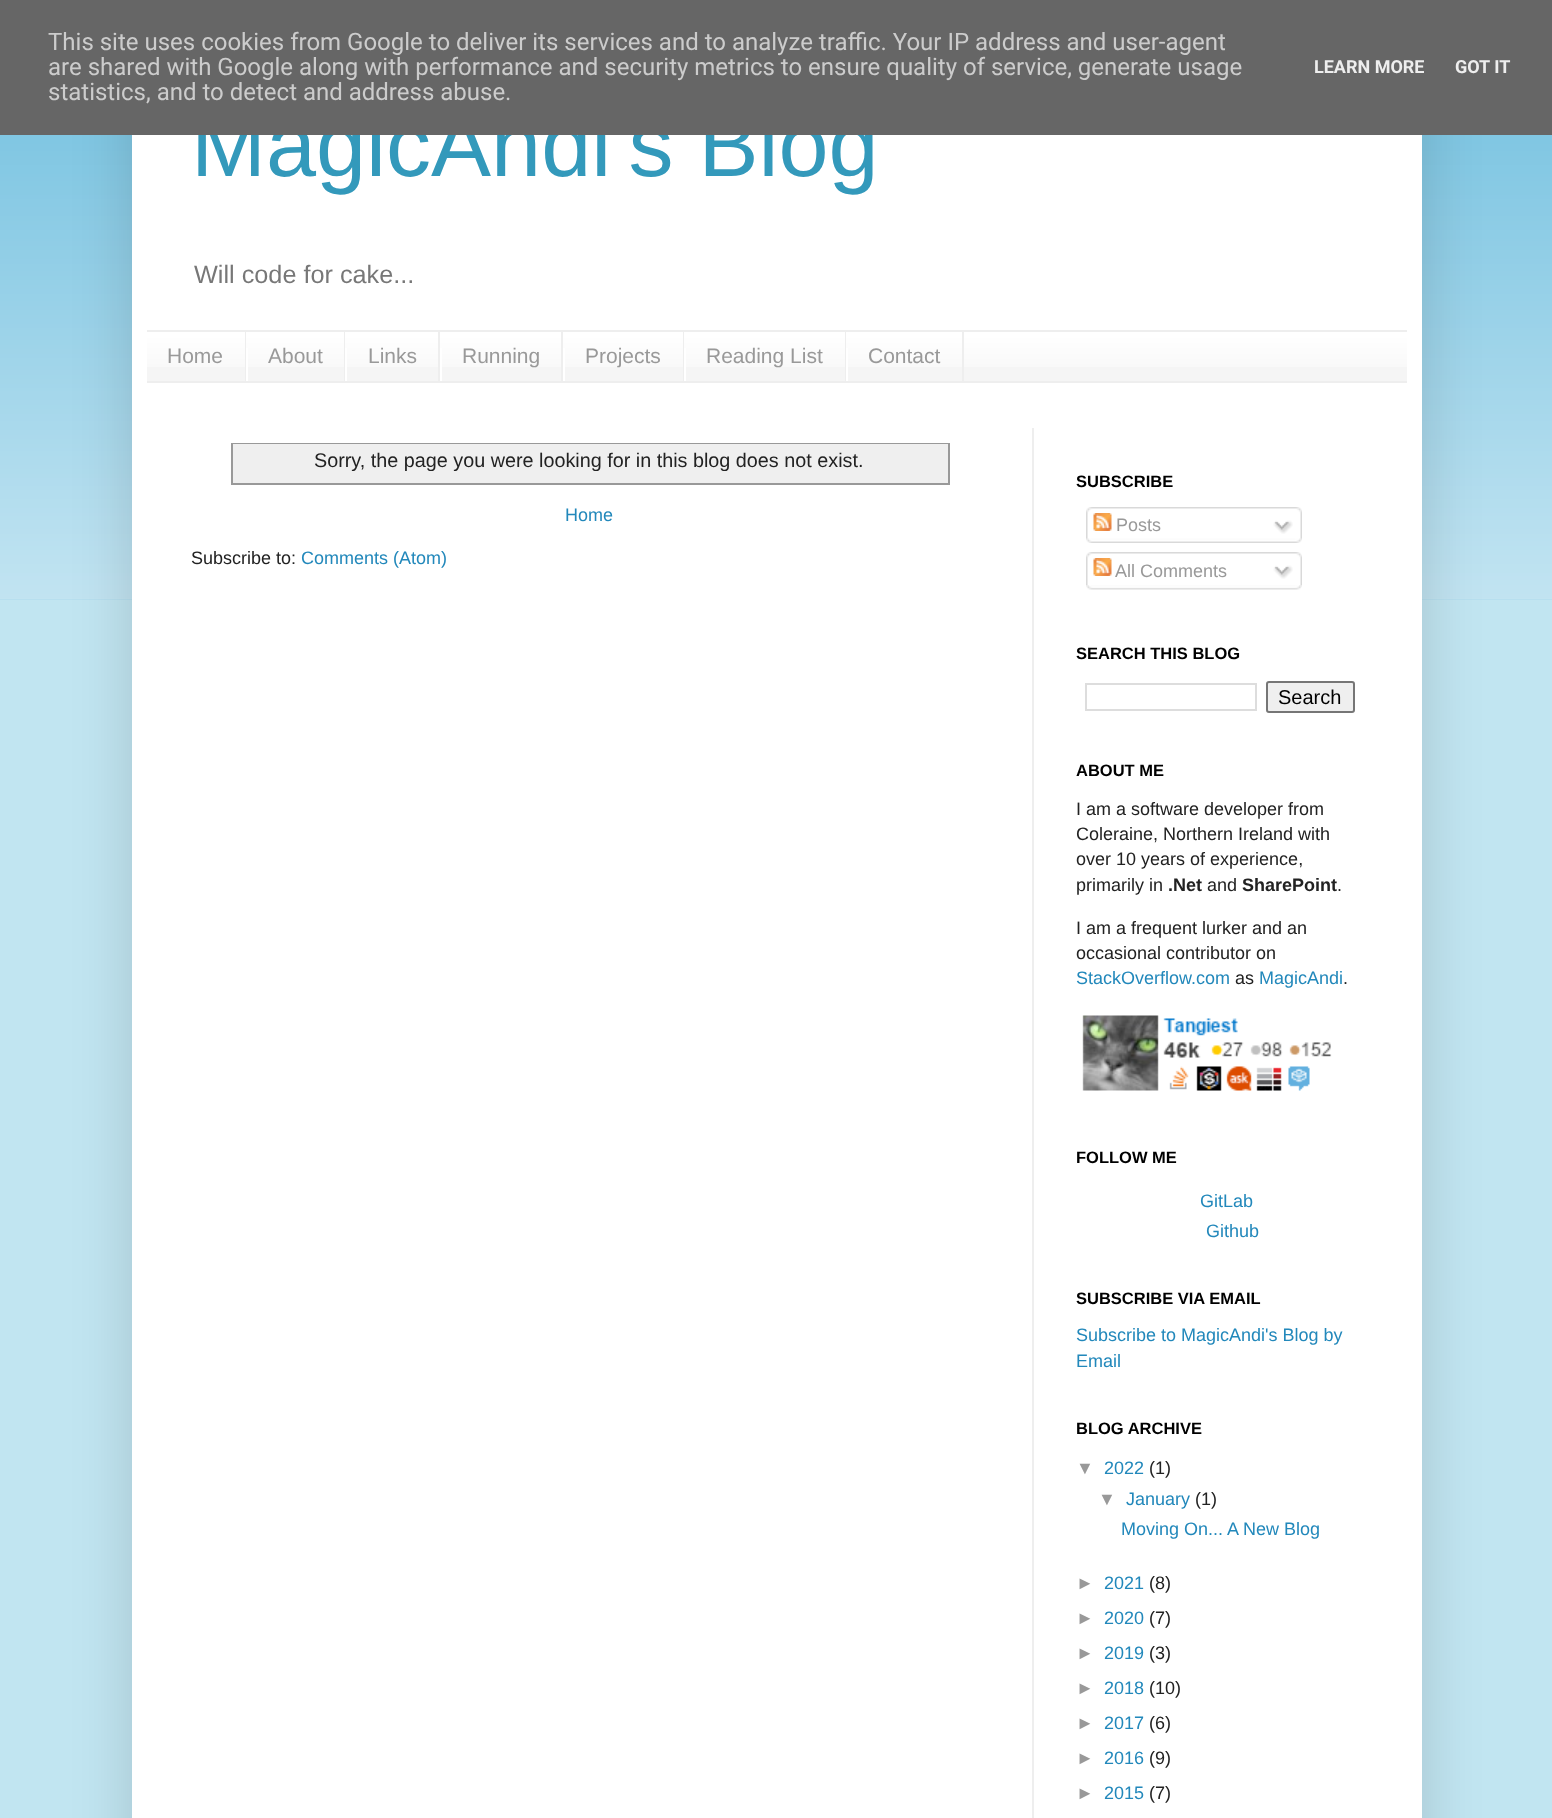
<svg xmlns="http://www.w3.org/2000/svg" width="1552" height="1818">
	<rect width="100%" height="100%" fill="#C1E5F1" />
	<rect x="0" y="135" width="1552" height="465" fill="#66BBDD" />
	<image x="0" y="135" width="1552" height="465" href="assets/img9.png" />
	<rect x="132" y="45" width="1290" height="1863" fill="#000000" fill-opacity="0.15" filter="blur(30px)" />
	<rect x="132" y="135" width="1290" height="1683" fill="#FFFFFF" />
	<text x="191" y="176" font-family="Liberation Sans" font-size="90" fill="#3399BB">MagicAndi's Blog</text>
	<rect x="0" y="0" width="1552" height="135" fill="#666666" />
	<g font-family="Roboto" font-size="24" fill="#CCCCCC">
		<text x="48" y="50">This site uses cookies from Google to deliver its services and to analyze traffic. Your IP address and user-agent</text>
		<text x="48" y="75">are shared with Google along with performance and security metrics to ensure quality of service, generate usage</text>
		<text x="48" y="100">statistics, and to detect and address abuse.</text>
	</g>
	<g font-family="Roboto" font-size="18" font-weight="700" fill="#EEEEEE">
		<text x="1314" y="73">LEARN MORE</text>
		<text x="1455" y="73">GOT IT</text>
	</g>
	<text x="194" y="283" font-family="Liberation Sans" font-size="25.25" fill="#777777">Will code for cake...</text>
	<rect x="147" y="333" width="1260" height="48" fill="#F5F5F5" />
	<image x="147" y="332" width="1260" height="35" href="assets/img1.png" />
	<rect x="147" y="330" width="1260" height="2" fill="#EEEEEE" />
	<rect x="147" y="381" width="1260" height="2" fill="#EEEEEE" />
	<rect x="245" y="332" width="1" height="49" fill="#EEEEEE" />
	<text x="167" y="363" font-family="Liberation Sans" font-size="21" fill="#999999">Home</text>
	<rect x="344" y="332" width="1" height="49" fill="#EEEEEE" />
	<rect x="246" y="348" width="2" height="33" fill="#FFFFFF" />
	<text x="268" y="363" font-family="Liberation Sans" font-size="21" fill="#999999">About</text>
	<rect x="438" y="332" width="2" height="49" fill="#EEEEEE" />
	<rect x="345" y="348" width="2" height="33" fill="#FFFFFF" />
	<text x="368" y="363" font-family="Liberation Sans" font-size="21" fill="#999999">Links</text>
	<rect x="561" y="332" width="2" height="49" fill="#EEEEEE" />
	<rect x="440" y="348" width="2" height="33" fill="#FFFFFF" />
	<text x="462" y="363" font-family="Liberation Sans" font-size="21" fill="#999999">Running</text>
	<rect x="683" y="332" width="1" height="49" fill="#EEEEEE" />
	<rect x="563" y="348" width="2" height="33" fill="#FFFFFF" />
	<text x="585" y="363" font-family="Liberation Sans" font-size="21" fill="#999999">Projects</text>
	<rect x="845" y="332" width="1" height="49" fill="#EEEEEE" />
	<rect x="684" y="348" width="2" height="33" fill="#FFFFFF" />
	<text x="706" y="363" font-family="Liberation Sans" font-size="21" fill="#999999">Reading List</text>
	<rect x="962" y="332" width="2" height="49" fill="#EEEEEE" />
	<rect x="846" y="348" width="2" height="33" fill="#FFFFFF" />
	<text x="868" y="363" font-family="Liberation Sans" font-size="21" fill="#999999">Contact</text>
	<rect x="1032" y="428" width="2" height="1390" fill="#EEEEEE" />
	<rect x="232" y="444" width="717" height="40" fill="none" stroke="#999999" stroke-width="2" />
	<rect x="233" y="444" width="715" height="39" fill="#EFEFEF" />
	<text x="314" y="467" font-family="Liberation Sans" font-size="19.8" fill="#222222">Sorry, the page you were looking for in this blog does not exist.</text>
	<text x="565" y="521" font-family="Liberation Sans" font-size="18" fill="#2288BB">Home</text>
	<text x="191" y="564" font-family="Liberation Sans" font-size="18" fill="#222222">Subscribe to:</text>
	<text x="301" y="564" font-family="Liberation Sans" font-size="18" fill="#2288BB">Comments (Atom)</text>
	<text x="1076" y="487" font-family="Liberation Sans" font-size="16.5" font-weight="700" fill="#000000">SUBSCRIBE</text>
	<image x="1086" y="507" width="216" height="32" href="assets/img2.png" />
	<image x="1093" y="513" width="19" height="18" href="assets/img3.png" />
	<text x="1116" y="531" font-family="Liberation Sans" font-size="18" fill="#999999">Posts</text>
	<image x="1273" y="520" width="20" height="14" href="assets/img4.png" />
	<image x="1086" y="538" width="216" height="5" href="assets/img5.png" />
	<image x="1086" y="552" width="216" height="33" href="assets/img6.png" />
	<image x="1093" y="558" width="19" height="18" href="assets/img3.png" />
	<text x="1115" y="577" font-family="Liberation Sans" font-size="18" fill="#999999">All Comments</text>
	<image x="1273" y="565" width="20" height="14" href="assets/img4.png" />
	<image x="1086" y="585" width="216" height="5" href="assets/img7.png" />
	<text x="1076" y="659" font-family="Liberation Sans" font-size="16.5" font-weight="700" fill="#000000">SEARCH THIS BLOG</text>
	<rect x="1086" y="684" width="170" height="26" fill="none" stroke="#DDDDDD" stroke-width="2" />
	<rect x="1267" y="682" width="87" height="30" rx="2" fill="#EFEFEF" stroke="#767676" stroke-width="2" />
	<text x="1278" y="704" font-family="Liberation Sans" font-size="20" fill="#000000">Search</text>
	<text x="1076" y="776" font-family="Liberation Sans" font-size="16.5" font-weight="700" fill="#000000">ABOUT ME</text>
	<g font-family="Liberation Sans" font-size="18" fill="#222222">
		<text x="1076" y="815">I am a software developer from</text>
		<text x="1076" y="840">Coleraine, Northern Ireland with</text>
		<text x="1076" y="865">over 10 years of experience,</text>
		<text x="1076" y="891">primarily in</text>
	</g>
	<text x="1168" y="891" font-family="Liberation Sans" font-size="18" font-weight="700" fill="#222222">.Net</text>
	<text x="1207" y="891" font-family="Liberation Sans" font-size="18" fill="#222222">and</text>
	<text x="1242" y="891" font-family="Liberation Sans" font-size="18" font-weight="700" fill="#222222">SharePoint</text>
	<g font-family="Liberation Sans" font-size="18" fill="#222222">
		<text x="1337" y="891">.</text>
		<text x="1076" y="934">I am a frequent lurker and an</text>
		<text x="1076" y="959">occasional contributor on</text>
	</g>
	<text x="1076" y="984" font-family="Liberation Sans" font-size="18" fill="#2288BB">StackOverflow.com</text>
	<text x="1235" y="984" font-family="Liberation Sans" font-size="18" fill="#222222">as</text>
	<text x="1259" y="984" font-family="Liberation Sans" font-size="18" fill="#2288BB">MagicAndi</text>
	<text x="1343" y="984" font-family="Liberation Sans" font-size="18" fill="#222222">.</text>
	<image x="1082" y="1015" width="250" height="76" href="assets/img8.png" />
	<text x="1076" y="1163" font-family="Liberation Sans" font-size="16.5" font-weight="700" fill="#000000">FOLLOW ME</text>
	<g font-family="Liberation Sans" font-size="18" fill="#2288BB">
		<text x="1200" y="1207">GitLab</text>
		<text x="1206" y="1237">Github</text>
	</g>
	<text x="1076" y="1304" font-family="Liberation Sans" font-size="16.5" font-weight="700" fill="#000000">SUBSCRIBE VIA EMAIL</text>
	<g font-family="Liberation Sans" font-size="18" fill="#2288BB">
		<text x="1076" y="1341">Subscribe to MagicAndi's Blog by</text>
		<text x="1076" y="1367">Email</text>
	</g>
	<text x="1076" y="1434" font-family="Liberation Sans" font-size="16.5" font-weight="700" fill="#000000">BLOG ARCHIVE</text>
	<text x="1076" y="1474" font-family="Liberation Sans" font-size="18" fill="#999999">▼</text>
	<text x="1104" y="1474" font-family="Liberation Sans" font-size="18" fill="#2288BB">2022</text>
	<text x="1149" y="1474" font-family="Liberation Sans" font-size="18" fill="#222222">(1)</text>
	<text x="1098" y="1505" font-family="Liberation Sans" font-size="18" fill="#999999">▼</text>
	<text x="1126" y="1505" font-family="Liberation Sans" font-size="18" fill="#2288BB">January</text>
	<text x="1195" y="1505" font-family="Liberation Sans" font-size="18" fill="#222222">(1)</text>
	<text x="1121" y="1535" font-family="Liberation Sans" font-size="18" fill="#2288BB">Moving On... A New Blog</text>
	<text x="1076" y="1589" font-family="Liberation Sans" font-size="18" fill="#999999">►</text>
	<text x="1104" y="1589" font-family="Liberation Sans" font-size="18" fill="#2288BB">2021</text>
	<text x="1149" y="1589" font-family="Liberation Sans" font-size="18" fill="#222222">(8)</text>
	<text x="1076" y="1624" font-family="Liberation Sans" font-size="18" fill="#999999">►</text>
	<text x="1104" y="1624" font-family="Liberation Sans" font-size="18" fill="#2288BB">2020</text>
	<text x="1149" y="1624" font-family="Liberation Sans" font-size="18" fill="#222222">(7)</text>
	<text x="1076" y="1659" font-family="Liberation Sans" font-size="18" fill="#999999">►</text>
	<text x="1104" y="1659" font-family="Liberation Sans" font-size="18" fill="#2288BB">2019</text>
	<text x="1149" y="1659" font-family="Liberation Sans" font-size="18" fill="#222222">(3)</text>
	<text x="1076" y="1694" font-family="Liberation Sans" font-size="18" fill="#999999">►</text>
	<text x="1104" y="1694" font-family="Liberation Sans" font-size="18" fill="#2288BB">2018</text>
	<text x="1149" y="1694" font-family="Liberation Sans" font-size="18" fill="#222222">(10)</text>
	<text x="1076" y="1729" font-family="Liberation Sans" font-size="18" fill="#999999">►</text>
	<text x="1104" y="1729" font-family="Liberation Sans" font-size="18" fill="#2288BB">2017</text>
	<text x="1149" y="1729" font-family="Liberation Sans" font-size="18" fill="#222222">(6)</text>
	<text x="1076" y="1764" font-family="Liberation Sans" font-size="18" fill="#999999">►</text>
	<text x="1104" y="1764" font-family="Liberation Sans" font-size="18" fill="#2288BB">2016</text>
	<text x="1149" y="1764" font-family="Liberation Sans" font-size="18" fill="#222222">(9)</text>
	<text x="1076" y="1799" font-family="Liberation Sans" font-size="18" fill="#999999">►</text>
	<text x="1104" y="1799" font-family="Liberation Sans" font-size="18" fill="#2288BB">2015</text>
	<text x="1149" y="1799" font-family="Liberation Sans" font-size="18" fill="#222222">(7)</text>
</svg>
